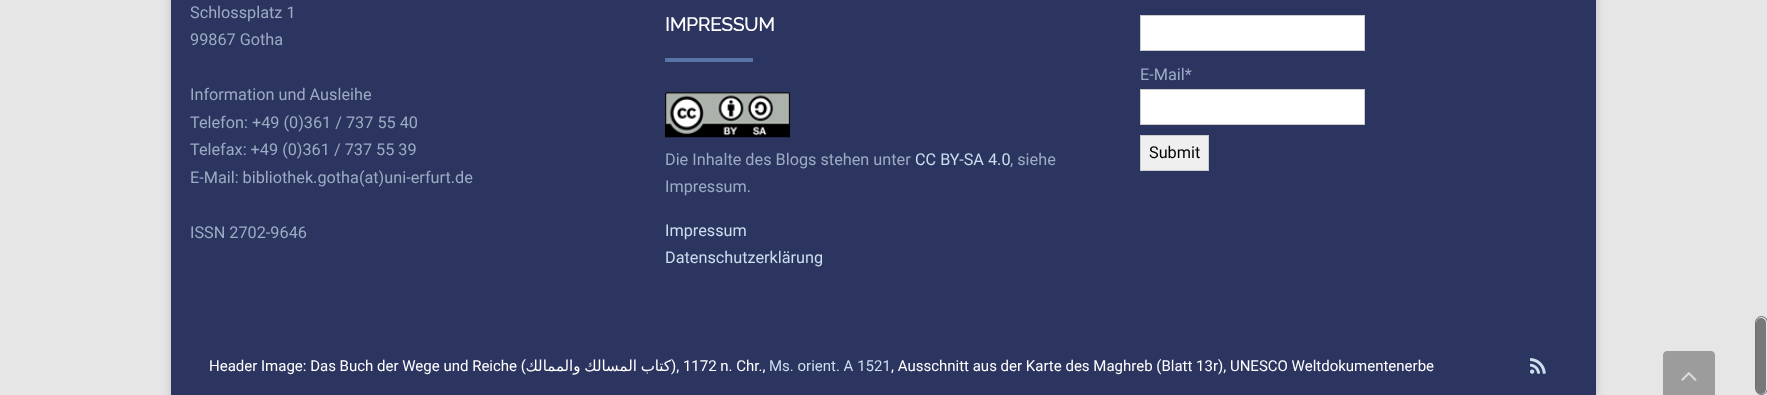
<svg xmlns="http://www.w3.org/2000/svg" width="1767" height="395">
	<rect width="100%" height="100%" fill="#E6E6E6" />
	<rect x="171" y="-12" width="1425" height="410" fill="#646464" fill-opacity="0.3" filter="blur(4px)" />
	<rect x="171" y="0" width="1425" height="395" fill="#2C3460" />
	<g font-family="Roboto" font-size="16.25" fill="#9DABC3">
		<text x="190" y="18">Schlossplatz 1</text>
		<text x="190" y="45">99867 Gotha</text>
		<text x="190" y="100">Information und Ausleihe</text>
		<text x="190" y="128">Telefon: +49 (0)361 / 737 55 40</text>
		<text x="190" y="155">Telefax: +49 (0)361 / 737 55 39</text>
		<text x="190" y="183">E-Mail: bibliothek.gotha(at)uni-erfurt.de</text>
		<text x="190" y="238">ISSN 2702-9646</text>
	</g>
	<text x="665" y="31" font-family="Raleway" font-size="18.75" font-weight="700" fill="#FFFFFF">IMPRESSUM</text>
	<rect x="665" y="58" width="88" height="4" fill="#5975A5" />
	<image x="665" y="92" width="125" height="46" href="assets/img1.png" />
	<text x="665" y="165" font-family="Roboto" font-size="16.25" fill="#9DABC3">Die Inhalte des Blogs stehen unter</text>
	<text x="915" y="165" font-family="Roboto" font-size="16.25" fill="#CDDEEE">CC BY-SA 4.0</text>
	<g font-family="Roboto" font-size="16.25" fill="#9DABC3">
		<text x="1010" y="165">, siehe</text>
		<text x="665" y="192">Impressum.</text>
	</g>
	<g font-family="Roboto" font-size="16.25" fill="#CDDEEE">
		<text x="665" y="236">Impressum</text>
		<text x="665" y="263">Datenschutzerklärung</text>
	</g>
	<rect x="1140.5" y="15.5" width="224" height="35" fill="#FFFFFF" stroke="#CCCCCC" />
	<text x="1140" y="80" font-family="Roboto" font-size="16.25" fill="#9DABC3">E-Mail*</text>
	<rect x="1140.5" y="89.5" width="224" height="35" fill="#FFFFFF" stroke="#CCCCCC" />
	<rect x="1140.5" y="135.5" width="68" height="35" fill="#EFEFEF" stroke="#CCCCCC" />
	<text x="1149" y="158" font-family="Roboto" font-size="16.25" fill="#000000">Submit</text>
	<text x="209" y="371" font-family="Roboto" font-size="15" fill="#FFFFFF">Header Image: Das Buch der Wege und Reiche (</text>
	<text x="671" y="371" word-spacing="-1" font-family="DejaVu Sans" font-size="15" direction="rtl" fill="#FFFFFF">كتاب المسالك والممالك</text>
	<text x="671" y="371" font-family="Roboto" font-size="15" fill="#FFFFFF">), 1172 n. Chr.,</text>
	<text x="769" y="371" font-family="Roboto" font-size="15" fill="#CDDEEE">Ms. orient. A 1521</text>
	<text x="891" y="371" font-family="Roboto" font-size="15" fill="#FFFFFF">, Ausschnitt aus der Karte des Maghreb (Blatt 13r), UNESCO Weltdokumentenerbe</text>
	<image x="1530" y="358" width="16" height="16" href="assets/img2.png" />
	<path d="M1667 351H1711C1713 351 1715 353 1715 355V395H1663V355C1663 353 1665 351 1667 351Z" fill="#9C9C9C" />
	<image x="1681" y="372" width="16" height="9" href="assets/img3.png" />
	<rect x="1756" y="318" width="10" height="76" rx="5" fill="#787878" />
	<rect x="1755.5" y="316.5" width="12" height="78" rx="6" fill="none" stroke="#6E6E6E" />
</svg>
